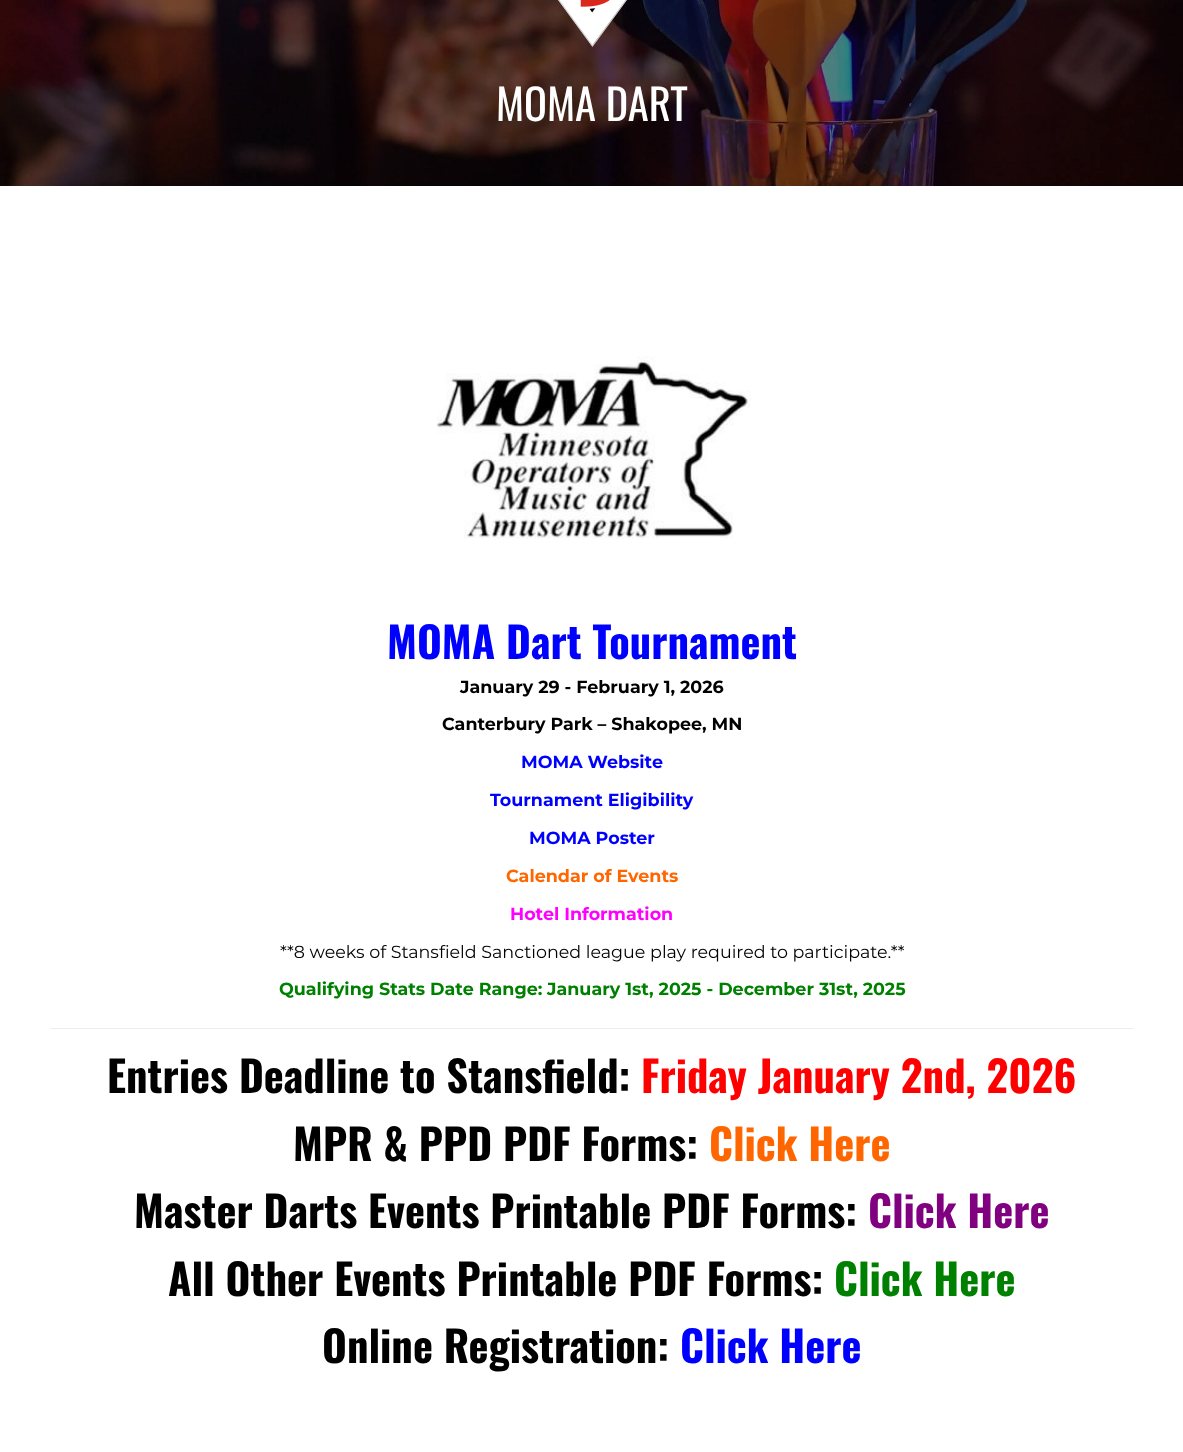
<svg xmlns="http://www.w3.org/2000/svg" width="1183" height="1452">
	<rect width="100%" height="100%" fill="#FFFFFF" />
	<image x="0" y="0" width="1183" height="186" href="assets/img2.png" />
	<path d="M530-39L592 46L655-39" fill="#FFFFFF" />
	<path d="M530-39L592.5 46L655-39" fill="none" stroke="#CCCCCC" stroke-width="1.2" />
	<image x="580" y="0" width="30" height="13" href="assets/img1.png" />
	<text x="496" y="121" font-family="Oswald" font-size="42.5" fill="#FFFFFF">MOMA DART</text>
	<image x="437" y="356" width="314" height="183" href="assets/img3.png" />
	<text x="387" y="659" font-family="Oswald" font-size="42.5" font-weight="700" fill="#0000FF">MOMA Dart Tournament</text>
	<g font-family="Montserrat" font-size="17.5" font-weight="700" fill="#000000">
		<text x="460" y="693">January 29 - February 1, 2026</text>
		<text x="442" y="730">Canterbury Park – Shakopee, MN</text>
	</g>
	<g font-family="Montserrat" font-size="17.5" font-weight="700" fill="#0000FF">
		<text x="521" y="768">MOMA Website</text>
		<text x="490" y="806">Tournament Eligibility</text>
		<text x="529" y="844">MOMA Poster</text>
	</g>
	<text x="506" y="882" font-family="Montserrat" font-size="17.5" font-weight="700" fill="#FF6600">Calendar of Events</text>
	<text x="510" y="920" font-family="Montserrat" font-size="17.5" font-weight="700" fill="#FF00FF">Hotel Information</text>
	<text x="280" y="958" font-family="Montserrat" font-size="17.5" fill="#000000">**8 weeks of Stansfield Sanctioned league play required to participate.**</text>
	<g font-family="Montserrat" font-size="17.5" font-weight="700" fill="#008000">
		<text x="279" y="995">Qualifying Stats Date Range:</text>
		<text x="547" y="995">January 1st, 2025 - December 31st, 2025</text>
	</g>
	<rect x="50" y="1028" width="1084" height="1" fill="#EEEEEE" />
	<text x="107" y="1093" font-family="Oswald" font-size="42.5" font-weight="700" fill="#000000">Entries Deadline to Stansfield:</text>
	<text x="641" y="1093" font-family="Oswald" font-size="42.5" font-weight="700" fill="#FF0000">Friday January 2nd, 2026</text>
	<text x="293" y="1161" font-family="Oswald" font-size="42.5" font-weight="700" fill="#000000">MPR &amp; PPD PDF Forms:</text>
	<text x="709" y="1161" font-family="Oswald" font-size="42.5" font-weight="700" fill="#FF6600">Click Here</text>
	<text x="134" y="1228" font-family="Oswald" font-size="42.5" font-weight="700" fill="#000000">Master Darts Events Printable PDF Forms:</text>
	<text x="868" y="1228" font-family="Oswald" font-size="42.5" font-weight="700" fill="#800080">Click Here</text>
	<text x="168" y="1296" font-family="Oswald" font-size="42.5" font-weight="700" fill="#000000">All Other Events Printable PDF Forms:</text>
	<text x="834" y="1296" font-family="Oswald" font-size="42.5" font-weight="700" fill="#008000">Click Here</text>
	<text x="322" y="1363" font-family="Oswald" font-size="42.5" font-weight="700" fill="#000000">Online Registration:</text>
	<text x="680" y="1363" font-family="Oswald" font-size="42.5" font-weight="700" fill="#0000FF">Click Here</text>
</svg>
